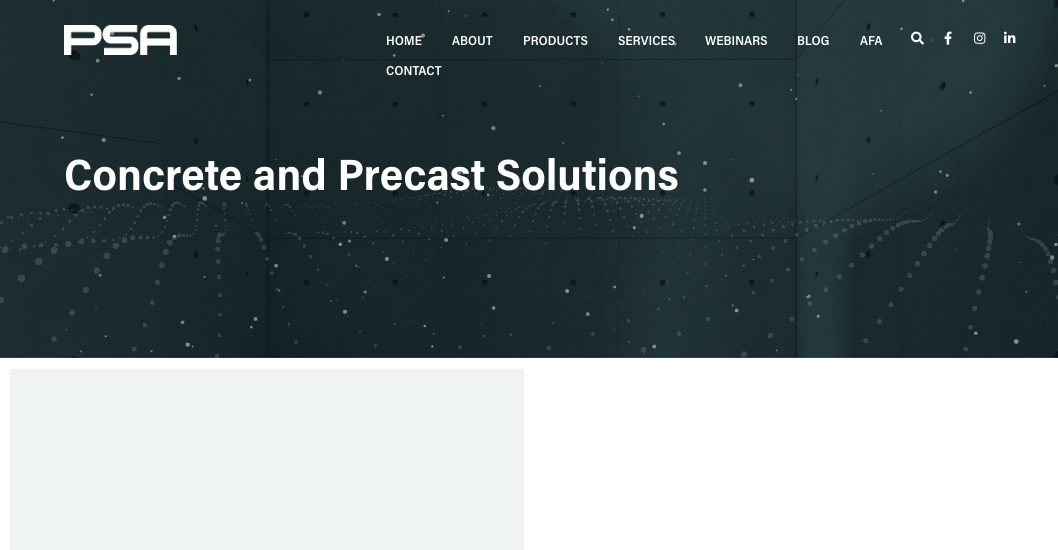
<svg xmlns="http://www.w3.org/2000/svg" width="1058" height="550">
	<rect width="100%" height="100%" fill="#FFFFFF" />
	<image x="0" y="0" width="1058" height="358" href="assets/img1.png" />
	<image x="65" y="158" width="613" height="33" href="assets/img2.png" />
	<image x="0" y="187" width="1058" height="171" href="assets/img4.png" />
	<image x="41" y="0" width="1017" height="353" href="assets/img3.png" />
	<image x="64" y="25" width="113" height="30" href="assets/img5.png" />
	<image x="387" y="36" width="35" height="10" href="assets/img6.png" />
	<image x="452" y="36" width="41" height="10" href="assets/img7.png" />
	<image x="524" y="36" width="64" height="10" href="assets/img8.png" />
	<image x="618" y="36" width="57" height="10" href="assets/img9.png" />
	<image x="705" y="36" width="62" height="10" href="assets/img10.png" />
	<image x="798" y="36" width="31" height="10" href="assets/img11.png" />
	<image x="860" y="36" width="23" height="9" href="assets/img12.png" />
	<image x="386" y="66" width="56" height="10" href="assets/img13.png" />
	<image x="911" y="31" width="13" height="14" href="assets/img14.png" />
	<image x="944" y="31" width="8" height="14" href="assets/img15.png" />
	<image x="974" y="32" width="12" height="12" href="assets/img16.png" />
	<image x="1004" y="31" width="12" height="12" href="assets/img17.png" />
	<rect x="10" y="369" width="514" height="181" fill="#EFF3F4" />
</svg>
